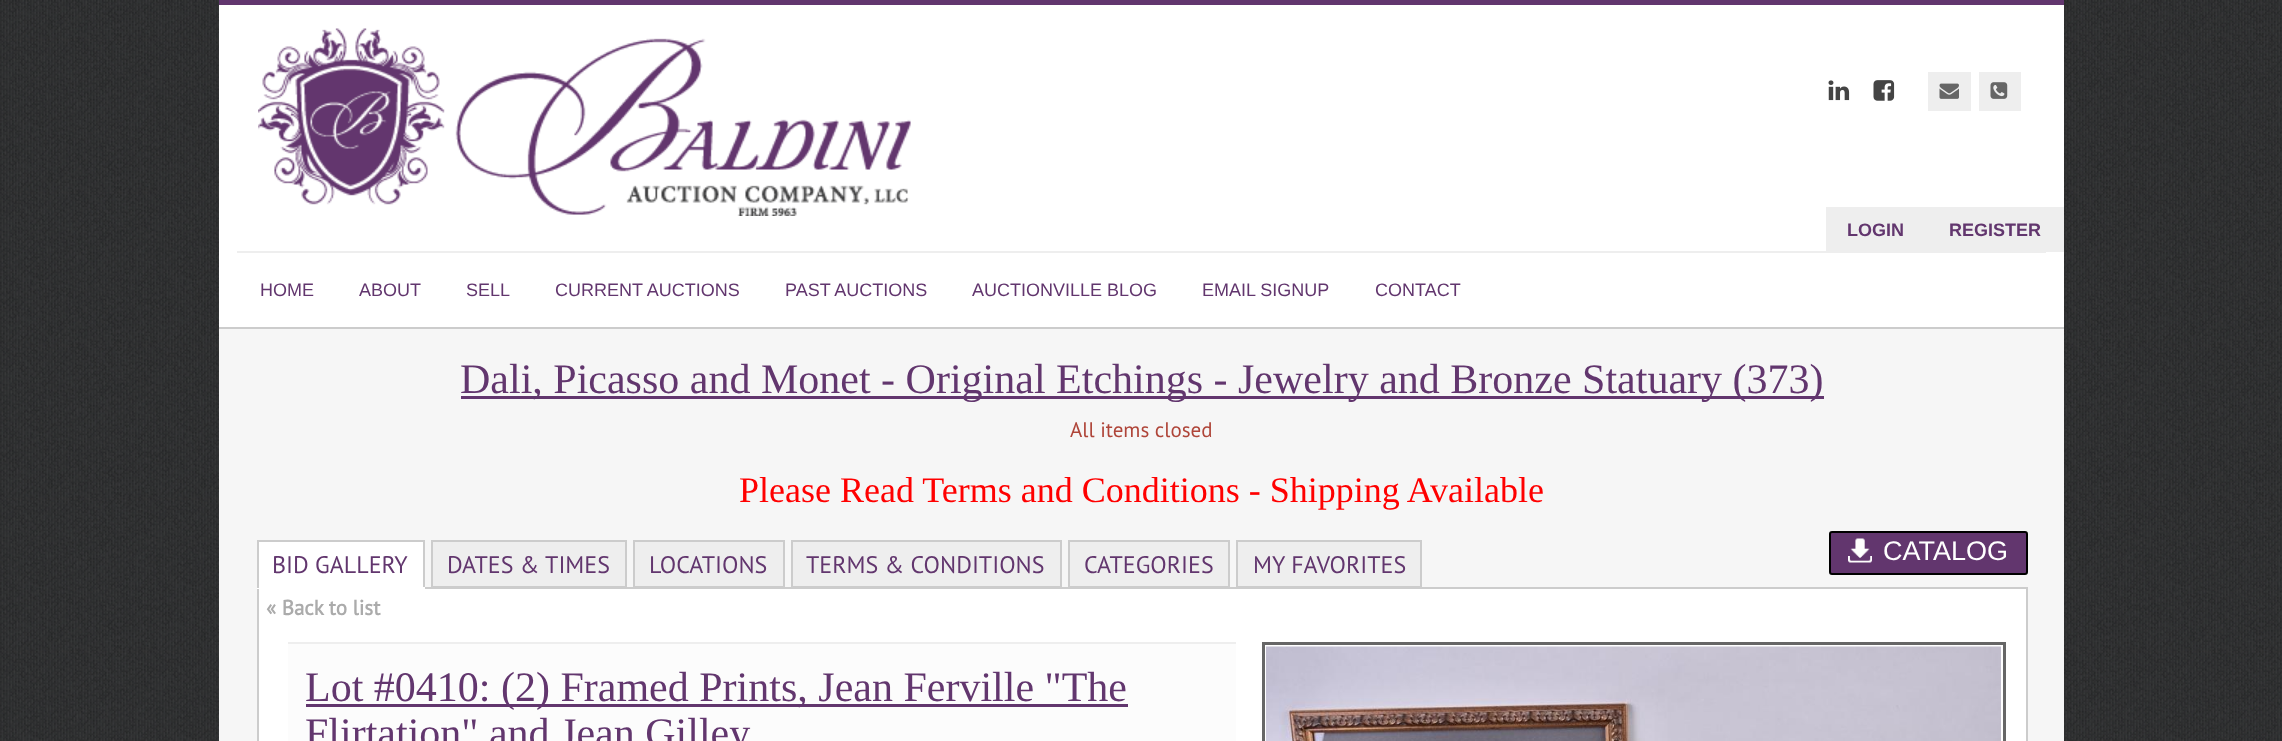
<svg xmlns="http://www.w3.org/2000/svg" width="2282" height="741">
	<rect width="100%" height="100%" fill="#FFFFFF" />
	<image x="0" y="0" width="2282" height="741" href="assets/img1.png" />
	<rect x="219" y="329" width="1845" height="412" fill="#F6F6F6" />
	<rect x="219" y="5" width="1845" height="322" fill="#FFFFFF" />
	<rect x="219" y="0" width="1845" height="5" fill="#62366E" />
	<rect x="219" y="327" width="1845" height="2" fill="#CCCCCC" />
	<image x="258" y="28" width="653" height="188" href="assets/img2.png" />
	<image x="1828" y="80" width="22" height="21" href="assets/img3.png" />
	<image x="1873" y="80" width="22" height="21" href="assets/img4.png" />
	<rect x="1928" y="72" width="43" height="39" fill="#EEEEEE" />
	<image x="1939" y="83" width="20" height="16" href="assets/img5.png" />
	<rect x="1979" y="72" width="42" height="39" fill="#EEEEEE" />
	<image x="1990" y="82" width="18" height="17" href="assets/img6.png" />
	<rect x="237" y="251" width="1809" height="2" fill="#EEEEEE" />
	<rect x="1826" y="207" width="238" height="45" fill="#EEEEEE" />
	<g font-family="Liberation Sans" font-size="18" font-weight="700" fill="#62366E">
		<text x="1847" y="236">LOGIN</text>
		<text x="1949" y="236">REGISTER</text>
	</g>
	<g font-family="Liberation Sans" font-size="18" fill="#62366E">
		<text x="260" y="296">HOME</text>
		<text x="359" y="296">ABOUT</text>
		<text x="466" y="296">SELL</text>
		<text x="555" y="296">CURRENT AUCTIONS</text>
		<text x="785" y="296">PAST AUCTIONS</text>
		<text x="972" y="296">AUCTIONVILLE BLOG</text>
		<text x="1202" y="296">EMAIL SIGNUP</text>
		<text x="1375" y="296">CONTACT</text>
	</g>
	<rect x="461" y="396" width="1363" height="3" fill="#62366E" />
	<text x="460" y="393" font-family="Liberation Serif" font-size="42" fill="#62366E">Dali, Picasso and Monet - Original Etchings - Jewelry and Bronze Statuary (373)</text>
	<text x="1070" y="437" font-family="PT Sans" font-size="21" fill="#AF4539">All items closed</text>
	<text x="739" y="502" font-family="Liberation Serif" font-size="36" fill="#FF0000">Please Read Terms and Conditions - Shipping Available</text>
	<rect x="1830" y="532" width="197" height="42" rx="2" fill="#62366E" stroke="#000000" stroke-width="2" />
	<image x="1848" y="538" width="24" height="25" href="assets/img7.png" />
	<text x="1883" y="560" font-family="Liberation Sans" font-size="27" fill="#FFFFFF">CATALOG</text>
	<rect x="259" y="542" width="164" height="45" fill="#FFFFFF" />
	<rect x="257" y="540" width="168" height="2" fill="#CCCCCC" />
	<rect x="432" y="541" width="194" height="46" fill="#EEEEEE" stroke="#CCCCCC" stroke-width="2" />
	<rect x="634" y="541" width="150" height="46" fill="#EEEEEE" stroke="#CCCCCC" stroke-width="2" />
	<rect x="792" y="541" width="269" height="46" fill="#EEEEEE" stroke="#CCCCCC" stroke-width="2" />
	<rect x="1069" y="541" width="160" height="46" fill="#EEEEEE" stroke="#CCCCCC" stroke-width="2" />
	<rect x="1237" y="541" width="184" height="46" fill="#EEEEEE" stroke="#CCCCCC" stroke-width="2" />
	<rect x="258" y="588" width="1769" height="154" fill="#FFFFFF" stroke="#CCCCCC" stroke-width="2" />
	<rect x="423" y="540" width="2" height="48" fill="#CCCCCC" />
	<rect x="257" y="587" width="168" height="2" fill="#FFFFFF" />
	<rect x="257" y="540" width="2" height="48" fill="#CCCCCC" />
	<g font-family="PT Sans" font-size="24" fill="#62366E">
		<text x="272" y="573">BID GALLERY</text>
		<text x="447" y="573">DATES &amp; TIMES</text>
		<text x="649" y="573">LOCATIONS</text>
		<text x="806" y="573">TERMS &amp; CONDITIONS</text>
		<text x="1084" y="573">CATEGORIES</text>
		<text x="1253" y="573">MY FAVORITES</text>
	</g>
	<text x="266" y="615" font-family="PT Sans" font-size="21" font-weight="700" fill="#ABABAB">« Back to list</text>
	<rect x="288" y="644" width="948" height="97" fill="#FCFCFC" />
	<rect x="288" y="642" width="948" height="2" fill="#EEEEEE" />
	<rect x="306" y="704" width="822" height="3" fill="#62366E" />
	<g font-family="Liberation Serif" font-size="42" fill="#62366E">
		<text x="305" y="701">Lot #0410: (2) Framed Prints, Jean Ferville "The</text>
		<text x="305" y="747">Flirtation" and Jean Gilley</text>
	</g>
	<rect x="1263.5" y="643.5" width="741" height="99" fill="none" stroke="#666666" stroke-width="3" />
	<image x="1266" y="646" width="735" height="95" href="assets/img8.png" />
</svg>
